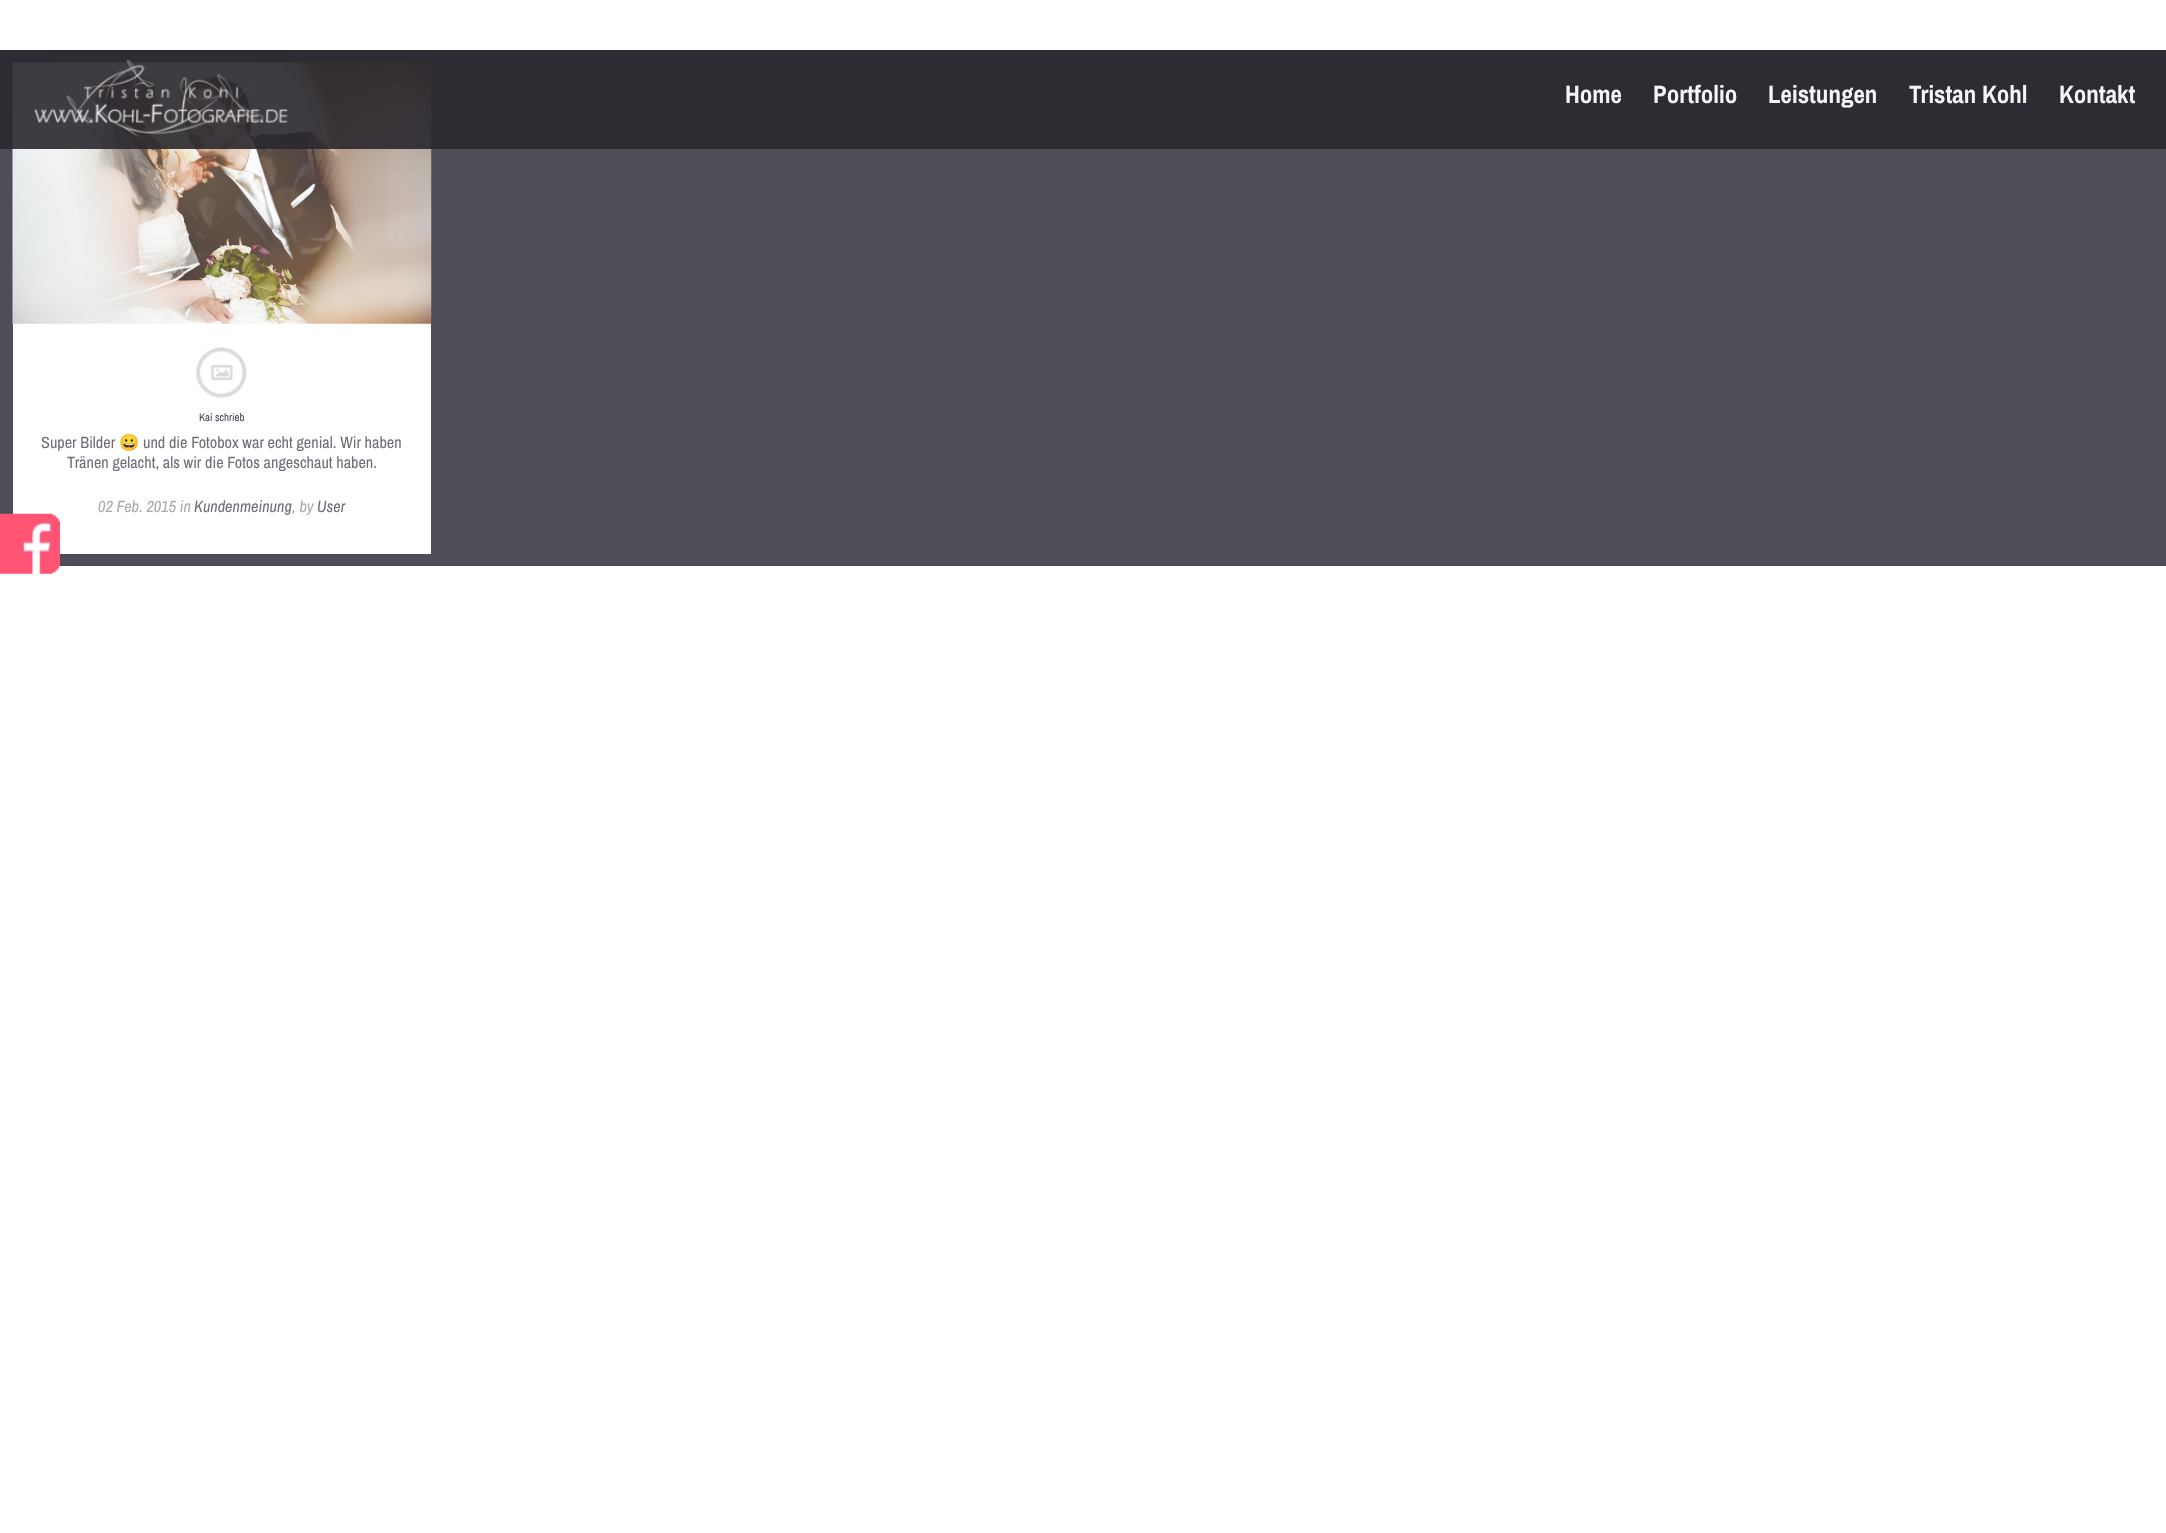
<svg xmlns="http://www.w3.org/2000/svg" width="2166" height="1533">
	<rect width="100%" height="100%" fill="#FFFFFF" />
	<rect x="0" y="50" width="2166" height="516" fill="#4F4D57" />
	<rect x="13" y="323" width="418" height="231" fill="#FFFFFF" />
	<image x="12" y="62" width="420" height="262" href="assets/img2.png" />
	<rect x="0" y="50" width="2166" height="99" fill="#2A282F" fill-opacity="0.9" />
	<image x="34" y="59" width="254" height="79" href="assets/img1.png" />
	<g font-family="Archivo Narrow" font-size="25" font-weight="700" fill="#F5F5F5">
		<text x="1565" y="103">Home</text>
		<text x="1653" y="103">Portfolio</text>
		<text x="1768" y="103">Leistungen</text>
		<text x="1909" y="103">Tristan Kohl</text>
		<text x="2059" y="103">Kontakt</text>
	</g>
	<image x="196" y="347" width="51" height="51" href="assets/img3.png" />
	<text x="199" y="421" font-family="Archivo Narrow" font-size="11" fill="#46434E">Kai schrieb</text>
	<text x="41" y="448" font-family="Archivo Narrow" font-size="16.25" fill="#6E6C74">Super Bilder</text>
	<text x="119" y="448" font-family="Noto Color Emoji" font-size="16.25" fill="#6E6C74">😀</text>
	<g font-family="Archivo Narrow" font-size="16.25" fill="#6E6C74">
		<text x="143" y="448">und die Fotobox war echt genial. Wir haben</text>
		<text x="67" y="468">Tränen gelacht, als wir die Fotos angeschaut haben.</text>
	</g>
	<text x="98" y="512" font-family="Archivo Narrow" font-size="16.25" font-style="italic" fill="#A7A7AD">02 Feb. 2015 in</text>
	<text x="194" y="512" font-family="Archivo Narrow" font-size="16.25" font-style="italic" fill="#6E6C74">Kundenmeinung</text>
	<text x="292" y="512" font-family="Archivo Narrow" font-size="16.25" font-style="italic" fill="#A7A7AD">, by</text>
	<text x="317" y="512" font-family="Archivo Narrow" font-size="16.25" font-style="italic" fill="#6E6C74">User</text>
	<image x="0" y="513" width="60" height="61" href="assets/img4.png" />
</svg>
